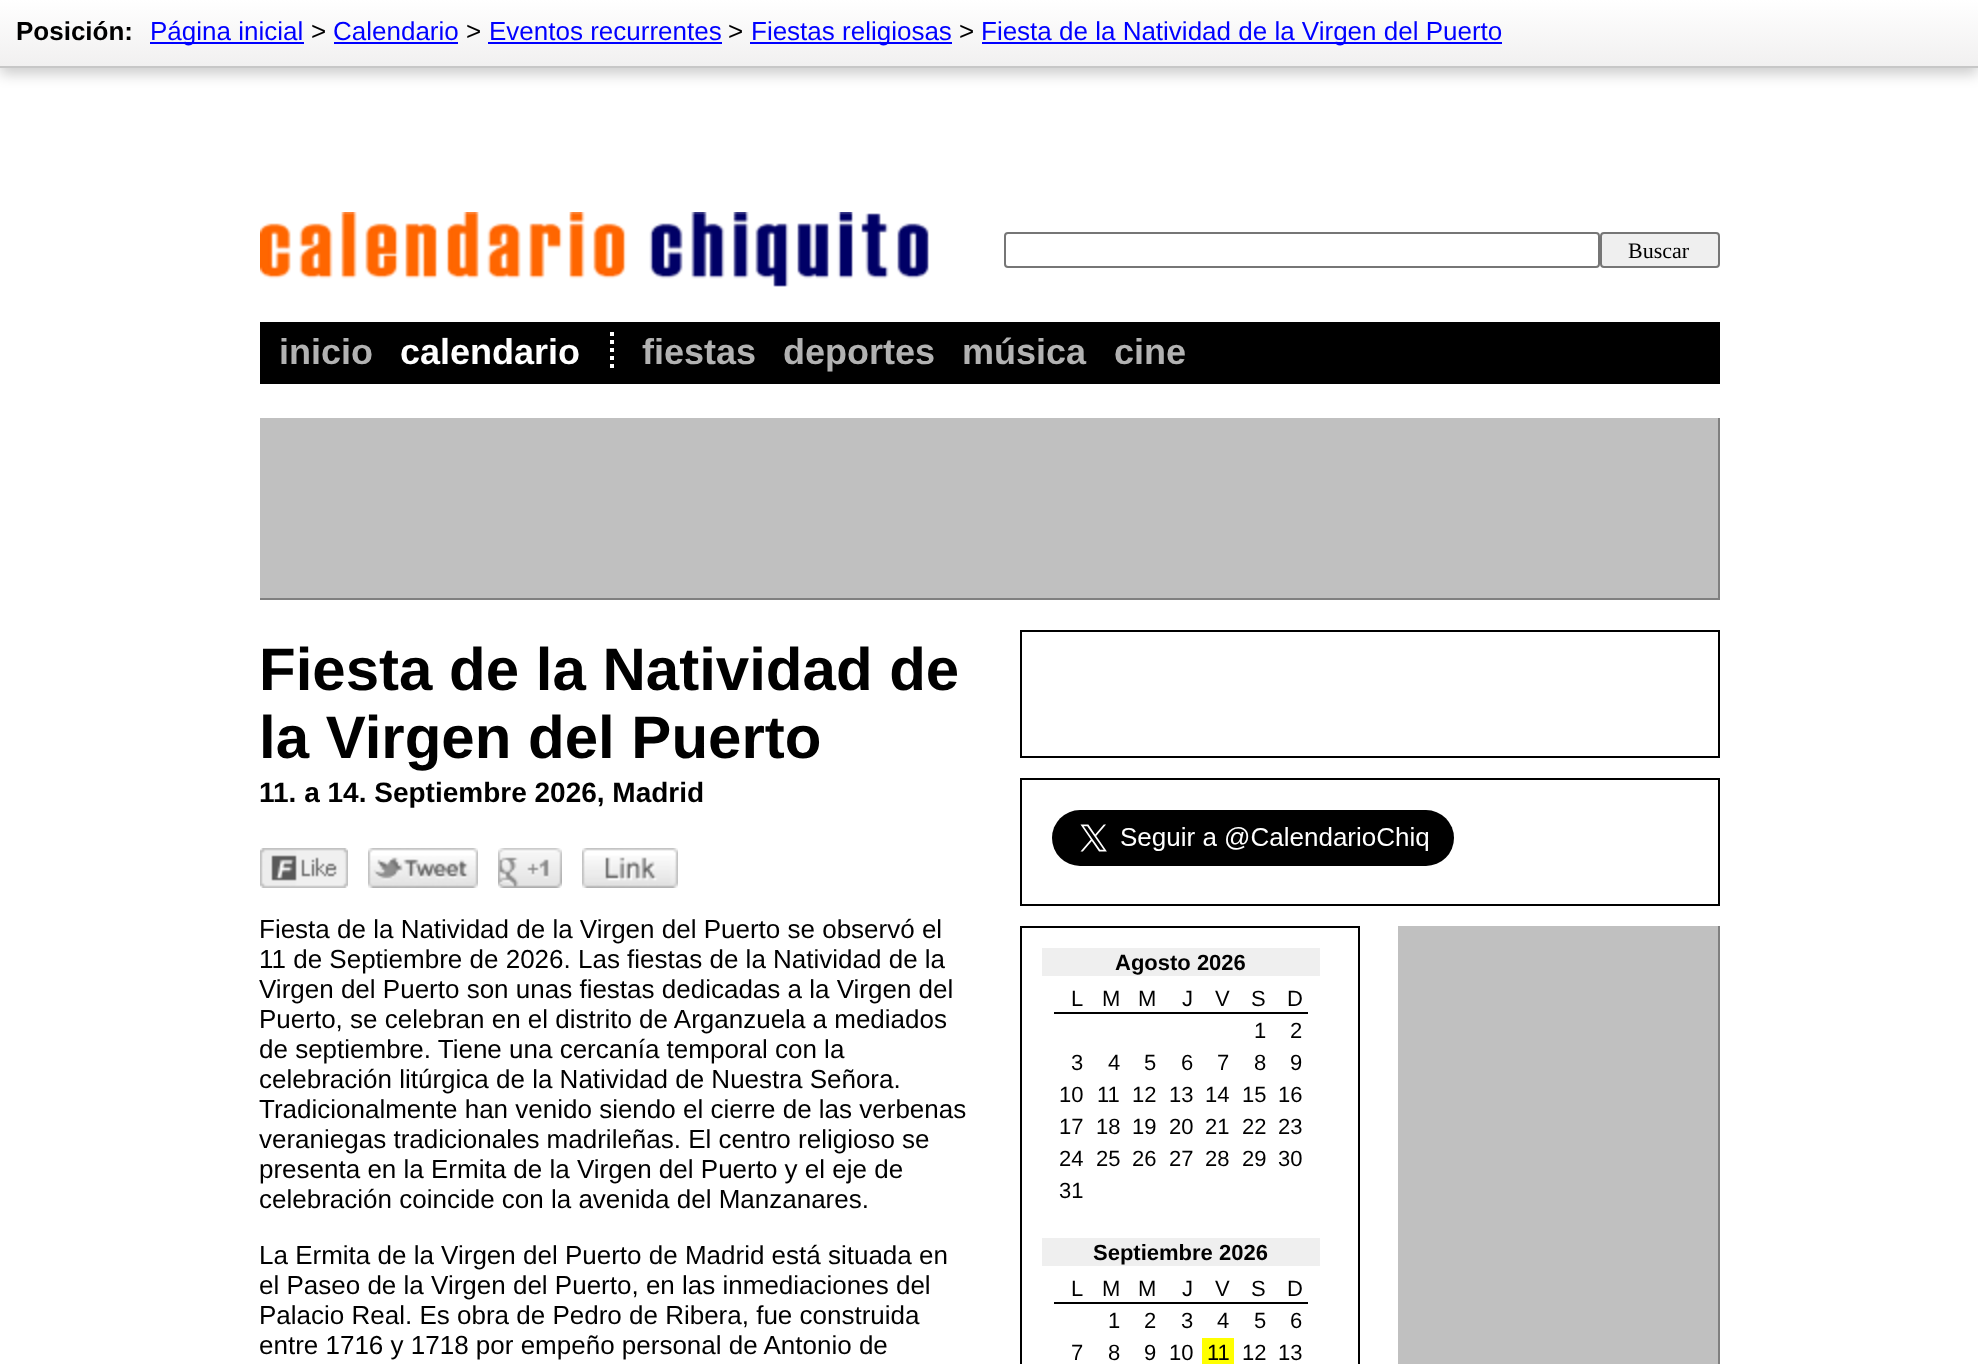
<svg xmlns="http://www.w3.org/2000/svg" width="1978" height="1364">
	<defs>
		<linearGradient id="g1" gradientUnits="userSpaceOnUse" x1="989" y1="0" x2="989" y2="66"><stop offset="0" stop-color="#FFFFFF" /><stop offset="1" stop-color="#F1F0F0" /></linearGradient>
	</defs>
	<rect width="100%" height="100%" fill="#FFFFFF" />
	<rect x="0" y="6" width="1978" height="68" fill="#000000" fill-opacity="0.2" filter="blur(7px)" />
	<rect x="0" y="0" width="1978" height="66" fill="url(#g1)" />
	<rect x="0" y="66" width="1978" height="2" fill="#C7C7C7" />
	<text x="16" y="40" font-family="Liberation Sans" font-size="26" font-weight="700" fill="#000000">Posición:</text>
	<rect x="150" y="42" width="154" height="2" fill="#0000FF" />
	<text x="150" y="40" font-family="Liberation Sans" font-size="26" fill="#0000FF">Página inicial</text>
	<text x="311" y="40" font-family="Liberation Sans" font-size="26" fill="#000000">&gt;</text>
	<text x="333" y="40" font-family="Liberation Sans" font-size="26" fill="#0000FF">Calendario</text>
	<rect x="334" y="42" width="124" height="2" fill="#0000FF" />
	<text x="466" y="40" font-family="Liberation Sans" font-size="26" fill="#000000">&gt;</text>
	<text x="489" y="40" font-family="Liberation Sans" font-size="26" fill="#0000FF">Eventos recurrentes</text>
	<rect x="488" y="42" width="234" height="2" fill="#0000FF" />
	<text x="728" y="40" font-family="Liberation Sans" font-size="26" fill="#000000">&gt;</text>
	<rect x="750" y="42" width="202" height="2" fill="#0000FF" />
	<text x="751" y="40" font-family="Liberation Sans" font-size="26" fill="#0000FF">Fiestas religiosas</text>
	<text x="959" y="40" font-family="Liberation Sans" font-size="26" fill="#000000">&gt;</text>
	<rect x="982" y="42" width="520" height="2" fill="#0000FF" />
	<text x="981" y="40" font-family="Liberation Sans" font-size="26" fill="#0000FF">Fiesta de la Natividad de la Virgen del Puerto</text>
	<image x="260" y="212" width="669" height="75" href="assets/img1.png" />
	<rect x="1005" y="233" width="594" height="34" rx="3" fill="none" stroke="#767676" stroke-width="2" />
	<rect x="1601" y="233" width="118" height="34" rx="3" fill="#EFEFEF" stroke="#767676" stroke-width="2" />
	<text x="1628" y="258" font-family="Liberation Serif" font-size="22" fill="#000000">Buscar</text>
	<rect x="260" y="322" width="1460" height="62" fill="#000000" />
	<text x="279" y="364" font-family="Liberation Sans" font-size="36" font-weight="700" fill="#B2B2B2">inicio</text>
	<text x="400" y="364" font-family="Liberation Sans" font-size="36" font-weight="700" fill="#FFFFFF">calendario</text>
	<path d="M612 332V372" fill="none" stroke="#FFFFFF" stroke-width="4" stroke-dasharray="4 4" />
	<g font-family="Liberation Sans" font-size="36" font-weight="700" fill="#B2B2B2">
		<text x="642" y="364">fiestas</text>
		<text x="783" y="364">deportes</text>
		<text x="962" y="364">música</text>
		<text x="1114" y="364">cine</text>
	</g>
	<rect x="260" y="418" width="1458" height="180" fill="#C0C0C0" />
	<rect x="1718" y="418" width="2" height="182" fill="#808080" />
	<rect x="260" y="598" width="1460" height="2" fill="#808080" />
	<g font-family="Liberation Sans" font-size="60" font-weight="700" fill="#000000">
		<text x="259" y="690">Fiesta de la Natividad de</text>
		<text x="259" y="758">la Virgen del Puerto</text>
	</g>
	<text x="259" y="802" font-family="Liberation Sans" font-size="28" font-weight="700" fill="#000000">11. a 14. Septiembre 2026, Madrid</text>
	<image x="260" y="848" width="88" height="40" href="assets/img2.png" />
	<image x="368" y="848" width="110" height="40" href="assets/img3.png" />
	<image x="498" y="848" width="64" height="40" href="assets/img4.png" />
	<image x="582" y="848" width="96" height="40" href="assets/img5.png" />
	<g font-family="Liberation Sans" font-size="26" fill="#000000">
		<text x="259" y="938">Fiesta de la Natividad de la Virgen del Puerto se observó el</text>
		<text x="259" y="968">11 de Septiembre de 2026. Las fiestas de la Natividad de la</text>
		<text x="259" y="998">Virgen del Puerto son unas fiestas dedicadas a la Virgen del</text>
		<text x="259" y="1028">Puerto, se celebran en el distrito de Arganzuela a mediados</text>
		<text x="259" y="1058">de septiembre. Tiene una cercanía temporal con la</text>
		<text x="259" y="1088">celebración litúrgica de la Natividad de Nuestra Señora.</text>
		<text x="259" y="1118">Tradicionalmente han venido siendo el cierre de las verbenas</text>
		<text x="259" y="1148">veraniegas tradicionales madrileñas. El centro religioso se</text>
		<text x="259" y="1178">presenta en la Ermita de la Virgen del Puerto y el eje de</text>
		<text x="259" y="1208">celebración coincide con la avenida del Manzanares.</text>
		<text x="259" y="1264">La Ermita de la Virgen del Puerto de Madrid está situada en</text>
		<text x="259" y="1294">el Paseo de la Virgen del Puerto, en las inmediaciones del</text>
		<text x="259" y="1324">Palacio Real. Es obra de Pedro de Ribera, fue construida</text>
		<text x="259" y="1354">entre 1716 y 1718 por empeño personal de Antonio de</text>
	</g>
	<rect x="1021" y="631" width="698" height="126" fill="none" stroke="#000000" stroke-width="2" />
	<rect x="1021" y="779" width="698" height="126" fill="none" stroke="#000000" stroke-width="2" />
	<image x="1052" y="810" width="402" height="56" href="assets/img6.png" />
	<rect x="1021" y="927" width="338" height="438" fill="none" stroke="#000000" stroke-width="2" />
	<rect x="1042" y="948" width="278" height="28" fill="#EFEFEF" />
	<text x="1115" y="970" font-family="Liberation Sans" font-size="22" font-weight="700" fill="#000000">Agosto 2026</text>
	<rect x="1054" y="1012" width="254" height="2" fill="#000000" />
	<g font-family="Liberation Sans" font-size="22" fill="#000000">
		<text x="1071" y="1006">L</text>
		<text x="1102" y="1006">M</text>
		<text x="1138" y="1006">M</text>
		<text x="1182" y="1006">J</text>
		<text x="1215" y="1006">V</text>
		<text x="1251" y="1006">S</text>
		<text x="1287" y="1006">D</text>
		<text x="1254" y="1038">1</text>
		<text x="1290" y="1038">2</text>
		<text x="1071" y="1070">3</text>
		<text x="1108" y="1070">4</text>
		<text x="1144" y="1070">5</text>
		<text x="1181" y="1070">6</text>
		<text x="1217" y="1070">7</text>
		<text x="1254" y="1070">8</text>
		<text x="1290" y="1070">9</text>
		<text x="1059" y="1102">10</text>
		<text x="1097" y="1102">11</text>
		<text x="1132" y="1102">12</text>
		<text x="1169" y="1102">13</text>
		<text x="1205" y="1102">14</text>
		<text x="1242" y="1102">15</text>
		<text x="1278" y="1102">16</text>
		<text x="1059" y="1134">17</text>
		<text x="1096" y="1134">18</text>
		<text x="1132" y="1134">19</text>
		<text x="1169" y="1134">20</text>
		<text x="1205" y="1134">21</text>
		<text x="1242" y="1134">22</text>
		<text x="1278" y="1134">23</text>
		<text x="1059" y="1166">24</text>
		<text x="1096" y="1166">25</text>
		<text x="1132" y="1166">26</text>
		<text x="1169" y="1166">27</text>
		<text x="1205" y="1166">28</text>
		<text x="1242" y="1166">29</text>
		<text x="1278" y="1166">30</text>
		<text x="1059" y="1198">31</text>
	</g>
	<rect x="1042" y="1238" width="278" height="28" fill="#EFEFEF" />
	<text x="1093" y="1260" font-family="Liberation Sans" font-size="22" font-weight="700" fill="#000000">Septiembre 2026</text>
	<rect x="1054" y="1302" width="254" height="2" fill="#000000" />
	<g font-family="Liberation Sans" font-size="22" fill="#000000">
		<text x="1071" y="1296">L</text>
		<text x="1102" y="1296">M</text>
		<text x="1138" y="1296">M</text>
		<text x="1182" y="1296">J</text>
		<text x="1215" y="1296">V</text>
		<text x="1251" y="1296">S</text>
		<text x="1287" y="1296">D</text>
		<text x="1108" y="1328">1</text>
		<text x="1144" y="1328">2</text>
		<text x="1181" y="1328">3</text>
		<text x="1217" y="1328">4</text>
		<text x="1254" y="1328">5</text>
		<text x="1290" y="1328">6</text>
		<text x="1071" y="1360">7</text>
		<text x="1108" y="1360">8</text>
		<text x="1144" y="1360">9</text>
		<text x="1169" y="1360">10</text>
	</g>
	<rect x="1202" y="1338" width="32" height="26" fill="#FFFF00" />
	<g font-family="Liberation Sans" font-size="22" fill="#000000">
		<text x="1207" y="1360">11</text>
		<text x="1242" y="1360">12</text>
		<text x="1278" y="1360">13</text>
	</g>
	<rect x="1398" y="926" width="320" height="438" fill="#C0C0C0" />
	<rect x="1718" y="926" width="2" height="438" fill="#808080" />
</svg>
